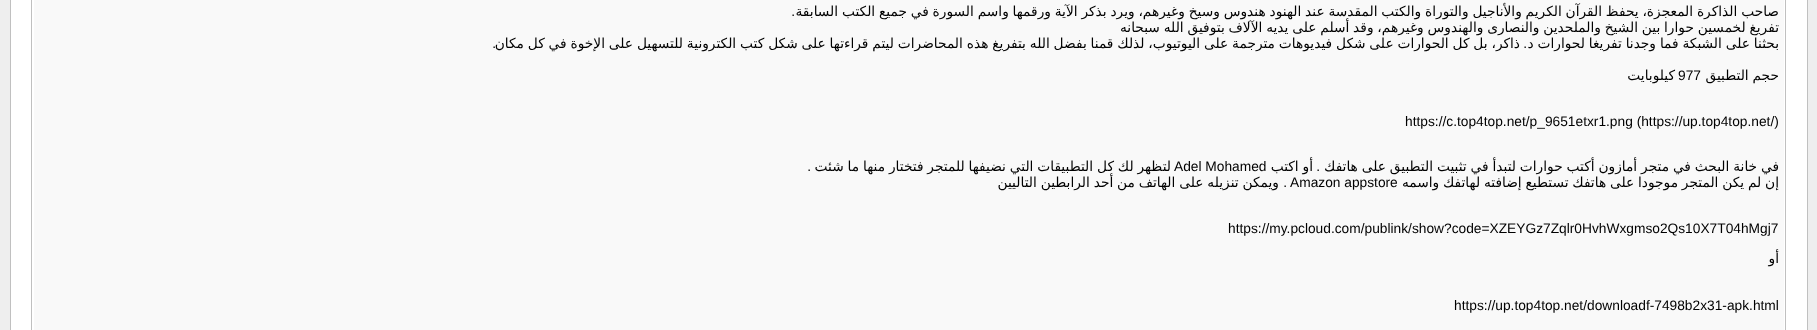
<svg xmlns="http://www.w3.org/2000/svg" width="1817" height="330">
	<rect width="100%" height="100%" fill="#EEEEEE" />
	<rect x="10.5" y="-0.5" width="1797" height="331" fill="#FFFFFF" stroke="#C0C0C0" />
	<rect x="31.5" y="-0.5" width="1754" height="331" fill="none" stroke="#C0C0C0" />
	<rect x="34" y="0" width="1750" height="330" fill="#F9F9F9" />
	<text x="1779" y="16" word-spacing="-0.55" font-family="DejaVu Sans" font-size="13.75" direction="rtl" fill="#000000">صاحب الذاكرة المعجزة، يحفظ القرآن الكريم والأناجيل والتوراة والكتب المقدسة عند الهنود هندوس وسيخ وغيرهم، ويرد بذكر الآية ورقمها واسم السورة في جميع الكتب السابقة</text>
	<text x="795" y="16" font-family="Liberation Sans" font-size="13.75" direction="rtl" fill="#000000">.</text>
	<g font-family="DejaVu Sans" font-size="13.75" direction="rtl" fill="#000000">
		<text x="1779" y="32" word-spacing="-0.55">تفريغ لخمسين حوارا بين الشيخ والملحدين والنصارى والهندوس وغيرهم، وقد أسلم على يديه الآلاف بتوفيق الله سبحانه</text>
		<text x="1779" y="48" word-spacing="-0.5">بحثنا على الشبكة فما وجدنا تفريغا لحوارات د</text>
	</g>
	<text x="1527" y="48" font-family="Liberation Sans" font-size="13.75" direction="rtl" fill="#000000">.</text>
	<text x="1520" y="48" word-spacing="-0.5" font-family="DejaVu Sans" font-size="13.75" direction="rtl" fill="#000000">ذاكر، بل كل الحوارات على شكل فيديوهات مترجمة على اليوتيوب، لذلك قمنا بفضل الله بتفريغ هذه المحاضرات ليتم قراءتها على شكل كتب الكترونية للتسهيل على الإخوة في كل مكان</text>
	<text x="496" y="48" font-family="Liberation Sans" font-size="13.75" direction="rtl" fill="#000000">.</text>
	<text x="1779" y="80" word-spacing="-0.55" font-family="DejaVu Sans" font-size="13.75" direction="rtl" fill="#000000">حجم التطبيق</text>
	<text x="1678" y="80" font-family="Liberation Sans" font-size="13.75" fill="#000000">977</text>
	<text x="1675" y="80" font-family="DejaVu Sans" font-size="13.75" direction="rtl" fill="#000000">كيلوبايت</text>
	<text x="1405" y="126" font-family="Liberation Sans" font-size="13.75" fill="#000000">https://c.top4top.net/p_9651etxr1.png (https://up.top4top.net/)</text>
	<text x="1779" y="171" word-spacing="-0.5" font-family="DejaVu Sans" font-size="13.75" direction="rtl" fill="#000000">في خانة البحث في متجر أمازون أكتب حوارات لتبدأ في تثبيت التطبيق على هاتفك</text>
	<text x="1320" y="171" font-family="Liberation Sans" font-size="13.75" direction="rtl" fill="#000000">.</text>
	<text x="1313" y="171" word-spacing="-0.5" font-family="DejaVu Sans" font-size="13.75" direction="rtl" fill="#000000">أو اكتب</text>
	<text x="1174" y="171" font-family="Liberation Sans" font-size="13.75" fill="#000000">Adel Mohamed</text>
	<text x="1171" y="171" word-spacing="-0.5" font-family="DejaVu Sans" font-size="13.75" direction="rtl" fill="#000000">لتظهر لك كل التطبيقات التي نضيفها للمتجر فتختار منها ما شئت</text>
	<text x="811" y="171" font-family="Liberation Sans" font-size="13.75" direction="rtl" fill="#000000">.</text>
	<text x="1779" y="187" word-spacing="-0.55" font-family="DejaVu Sans" font-size="13.75" direction="rtl" fill="#000000">إن لم يكن المتجر موجودا على هاتفك تستطيع إضافته لهاتفك واسمه</text>
	<text x="1290" y="187" font-family="Liberation Sans" font-size="13.75" fill="#000000">Amazon appstore</text>
	<text x="1287" y="187" font-family="Liberation Sans" font-size="13.75" direction="rtl" fill="#000000">.</text>
	<text x="1279" y="187" word-spacing="-0.5" font-family="DejaVu Sans" font-size="13.75" direction="rtl" fill="#000000">ويمكن تنزيله على الهاتف من أحد الرابطين التاليين</text>
	<text x="1228" y="233" font-family="Liberation Sans" font-size="13.75" fill="#000000">https://my.pcloud.com/publink/show?code=XZEYGz7Zqlr0HvhWxgmso2Qs10X7T04hMgj7</text>
	<text x="1779" y="263" font-family="DejaVu Sans" font-size="13.75" direction="rtl" fill="#000000">أو</text>
	<text x="1454" y="310" font-family="Liberation Sans" font-size="13.75" fill="#000000">https://up.top4top.net/downloadf-7498b2x31-apk.html</text>
</svg>
